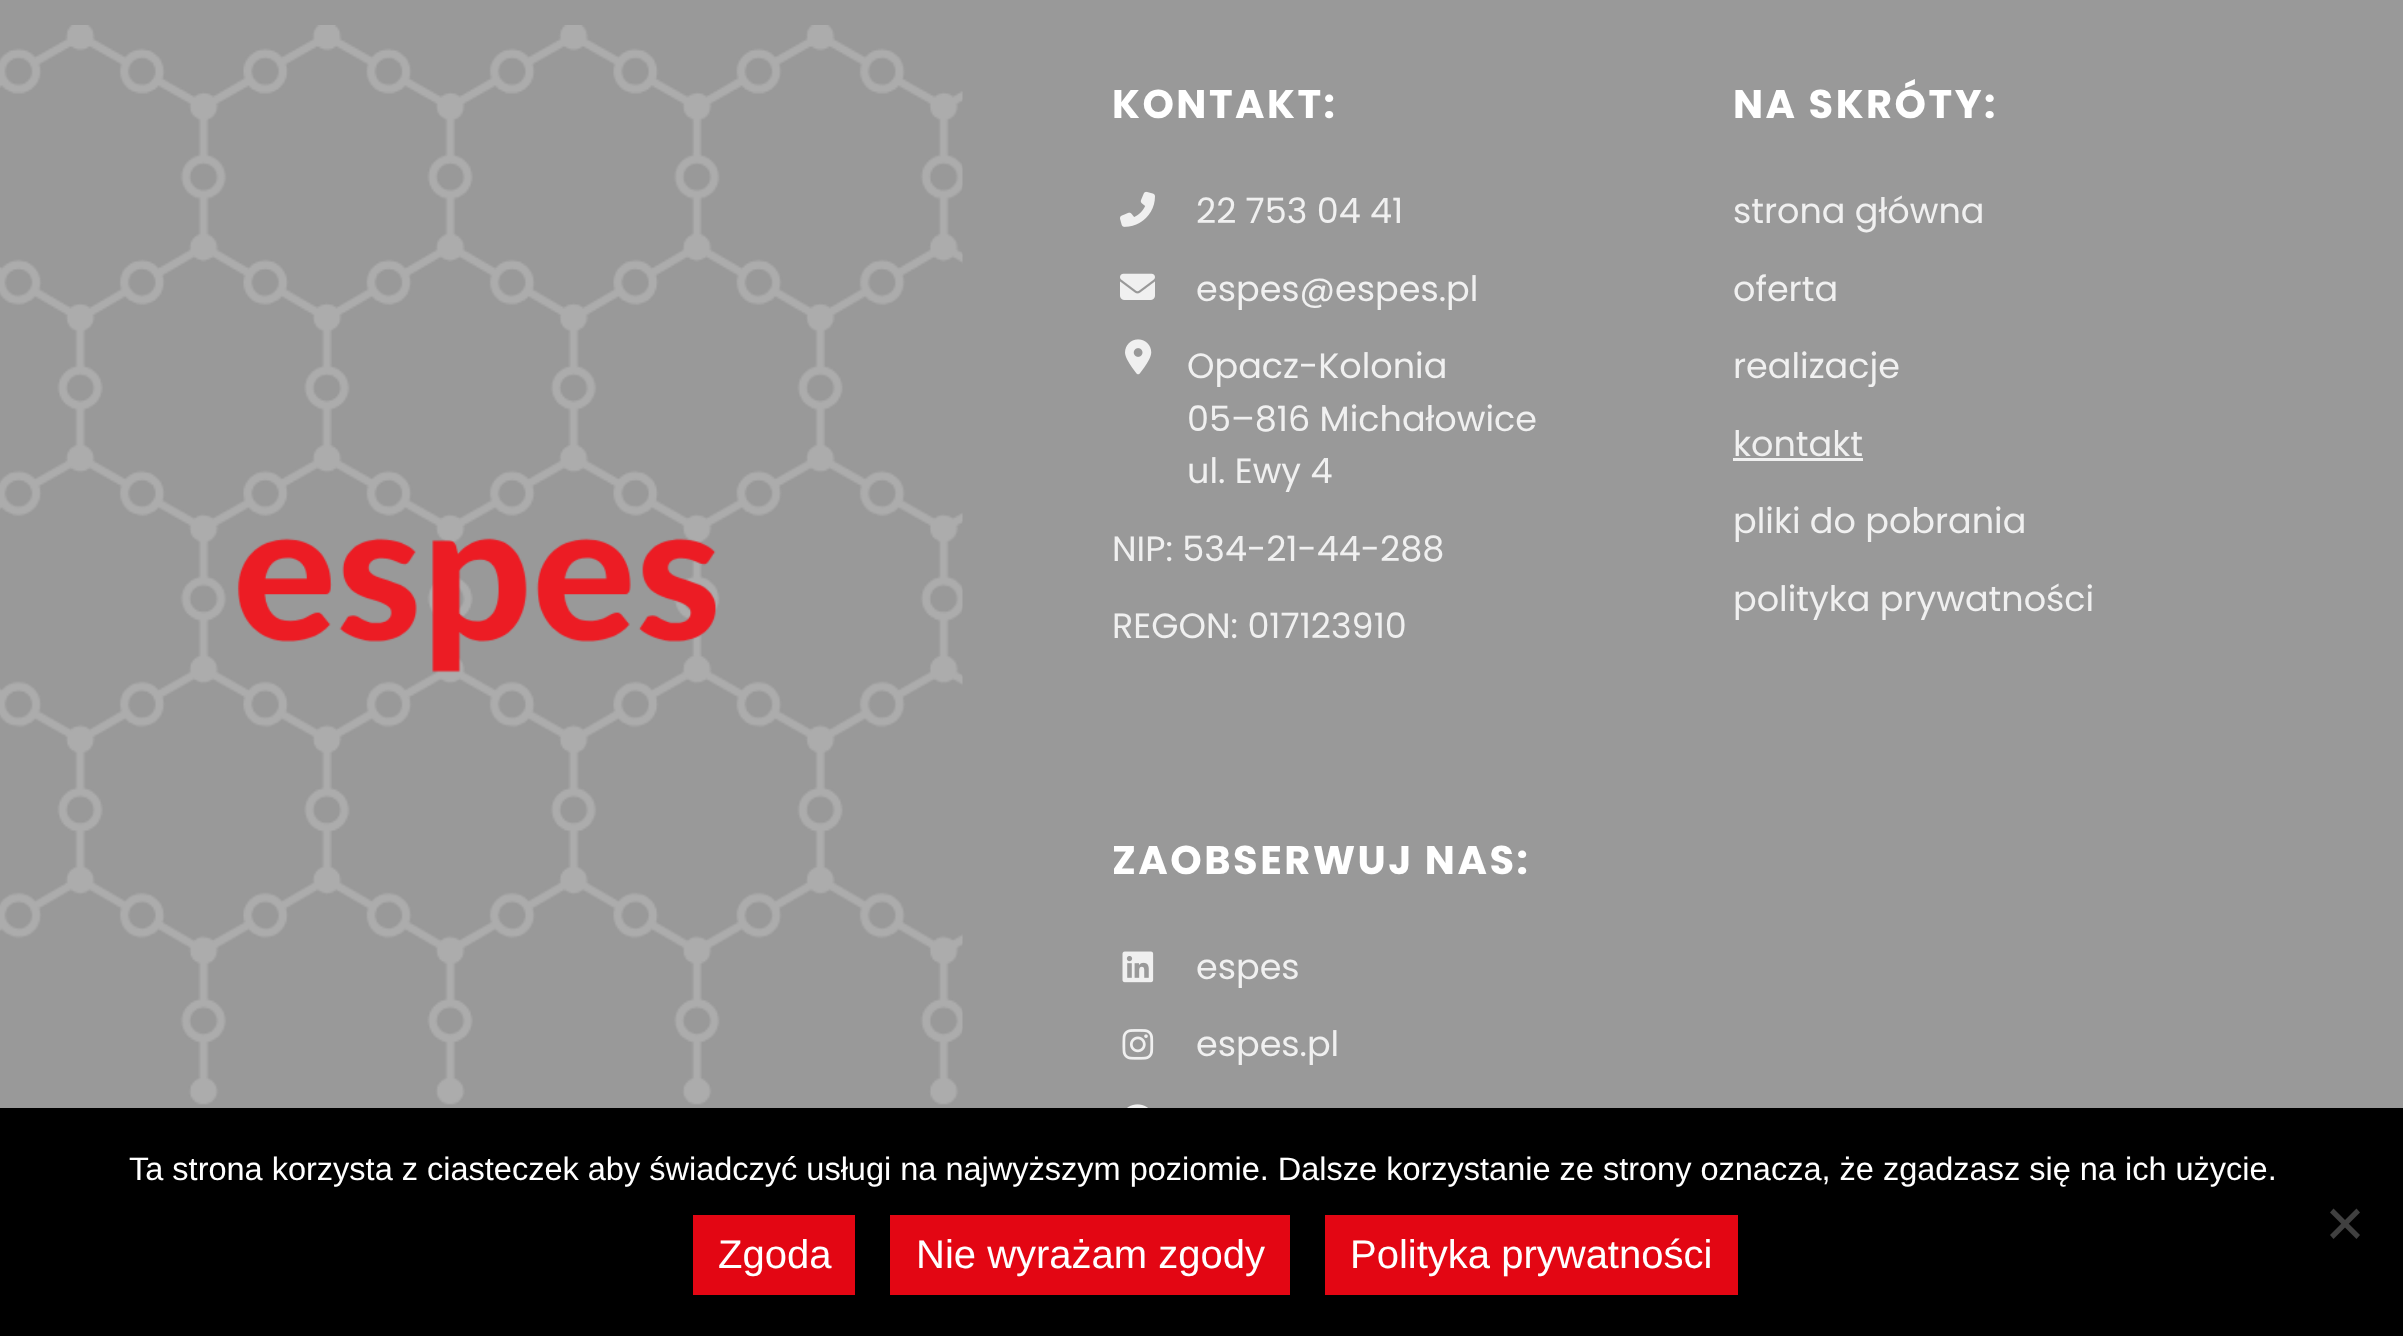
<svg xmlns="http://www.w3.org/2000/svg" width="2403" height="1336">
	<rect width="100%" height="100%" fill="#999999" />
	<image x="0" y="25" width="963" height="1080" href="assets/img1.png" />
	<image x="237" y="538" width="480" height="135" href="assets/img2.png" />
	<text x="1112" y="118" font-family="Poppins" font-size="40" font-weight="700" letter-spacing="2.5" fill="#FFFFFF">KONTAKT:</text>
	<image x="1120" y="191" width="35" height="36" href="assets/img3.png" />
	<text x="1196" y="223" font-family="Poppins" font-size="35" fill="#F0F0F0">22 753 04 41</text>
	<image x="1120" y="273" width="35" height="27" href="assets/img4.png" />
	<text x="1196" y="301" font-family="Poppins" font-size="35" fill="#F0F0F0">espes@espes.pl</text>
	<image x="1125" y="339" width="27" height="36" href="assets/img5.png" />
	<g font-family="Poppins" font-size="35" fill="#F0F0F0">
		<text x="1187" y="378">Opacz-Kolonia</text>
		<text x="1187" y="431">05–816 Michałowice</text>
		<text x="1187" y="483">ul. Ewy 4</text>
		<text x="1112" y="561">NIP: 534-21-44-288</text>
		<text x="1112" y="638">REGON: 017123910</text>
	</g>
	<text x="1733" y="118" font-family="Poppins" font-size="40" font-weight="700" letter-spacing="2.5" fill="#FFFFFF">NA SKRÓTY:</text>
	<g font-family="Poppins" font-size="35" fill="#F0F0F0">
		<text x="1733" y="223">strona główna</text>
		<text x="1733" y="301">oferta</text>
		<text x="1733" y="378">realizacje</text>
		<text x="1733" y="456">kontakt</text>
	</g>
	<rect x="1733" y="458" width="130" height="3" fill="#F0F0F0" />
	<g font-family="Poppins" font-size="35" fill="#F0F0F0">
		<text x="1733" y="533">pliki do pobrania</text>
		<text x="1733" y="611">polityka prywatności</text>
	</g>
	<text x="1112" y="874" font-family="Poppins" font-size="40" font-weight="700" letter-spacing="2.5" fill="#FFFFFF">ZAOBSERWUJ NAS:</text>
	<image x="1122" y="951" width="32" height="32" href="assets/img6.png" />
	<text x="1196" y="979" font-family="Poppins" font-size="35" fill="#F0F0F0">espes</text>
	<image x="1122" y="1029" width="32" height="31" href="assets/img7.png" />
	<text x="1196" y="1056" font-family="Poppins" font-size="35" fill="#F0F0F0">espes.pl</text>
	<image x="1127" y="1104" width="21" height="4" href="assets/img8.png" />
	<rect x="0" y="1108" width="2403" height="228" fill="#000000" />
	<text x="129" y="1180" font-family="Liberation Sans" font-size="32.5" fill="#FFFFFF">Ta strona korzysta z ciasteczek aby świadczyć usługi na najwyższym poziomie. Dalsze korzystanie ze strony oznacza, że zgadzasz się na ich użycie.</text>
	<path d="M2356.5 1208.5L2360 1212.5L2333.5 1239L2330 1235Z" fill="#404040" />
	<path d="M2330 1212.5L2333.5 1208.5L2360 1235L2356.5 1239Z" fill="#404040" />
	<rect x="693" y="1215" width="162" height="80" fill="#E30613" />
	<text x="718" y="1268" font-family="Liberation Sans" font-size="40" fill="#FFFFFF">Zgoda</text>
	<rect x="890" y="1215" width="400" height="80" fill="#E30613" />
	<text x="916" y="1268" font-family="Liberation Sans" font-size="40" fill="#FFFFFF">Nie wyrażam zgody</text>
	<rect x="1325" y="1215" width="413" height="80" fill="#E30613" />
	<text x="1350" y="1268" font-family="Liberation Sans" font-size="40" fill="#FFFFFF">Polityka prywatności</text>
</svg>
